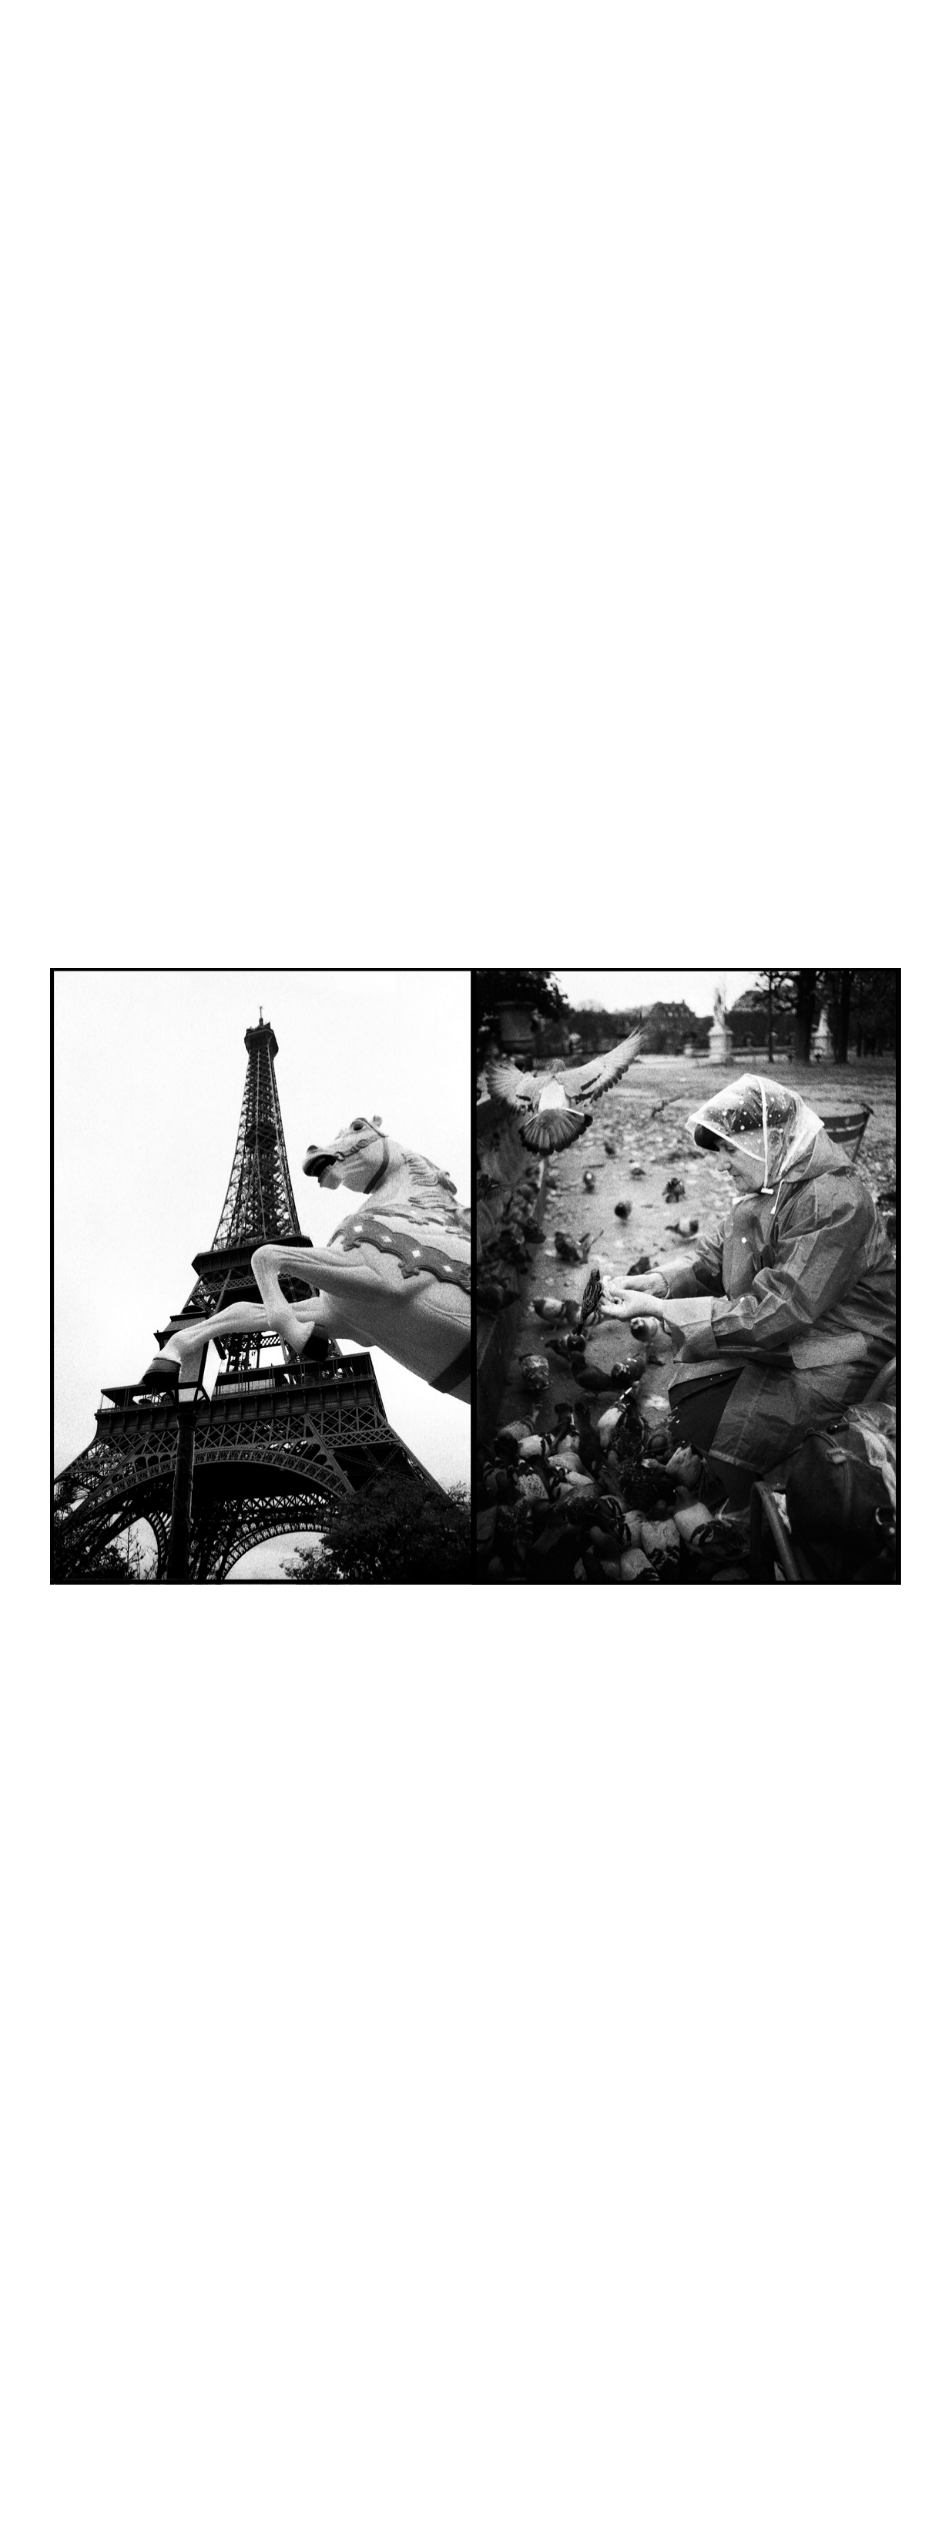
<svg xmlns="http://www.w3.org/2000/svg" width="951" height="2545">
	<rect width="100%" height="100%" fill="#FFFFFF" />
	<image x="50" y="968" width="851" height="617" href="assets/img1.png" />
</svg>
